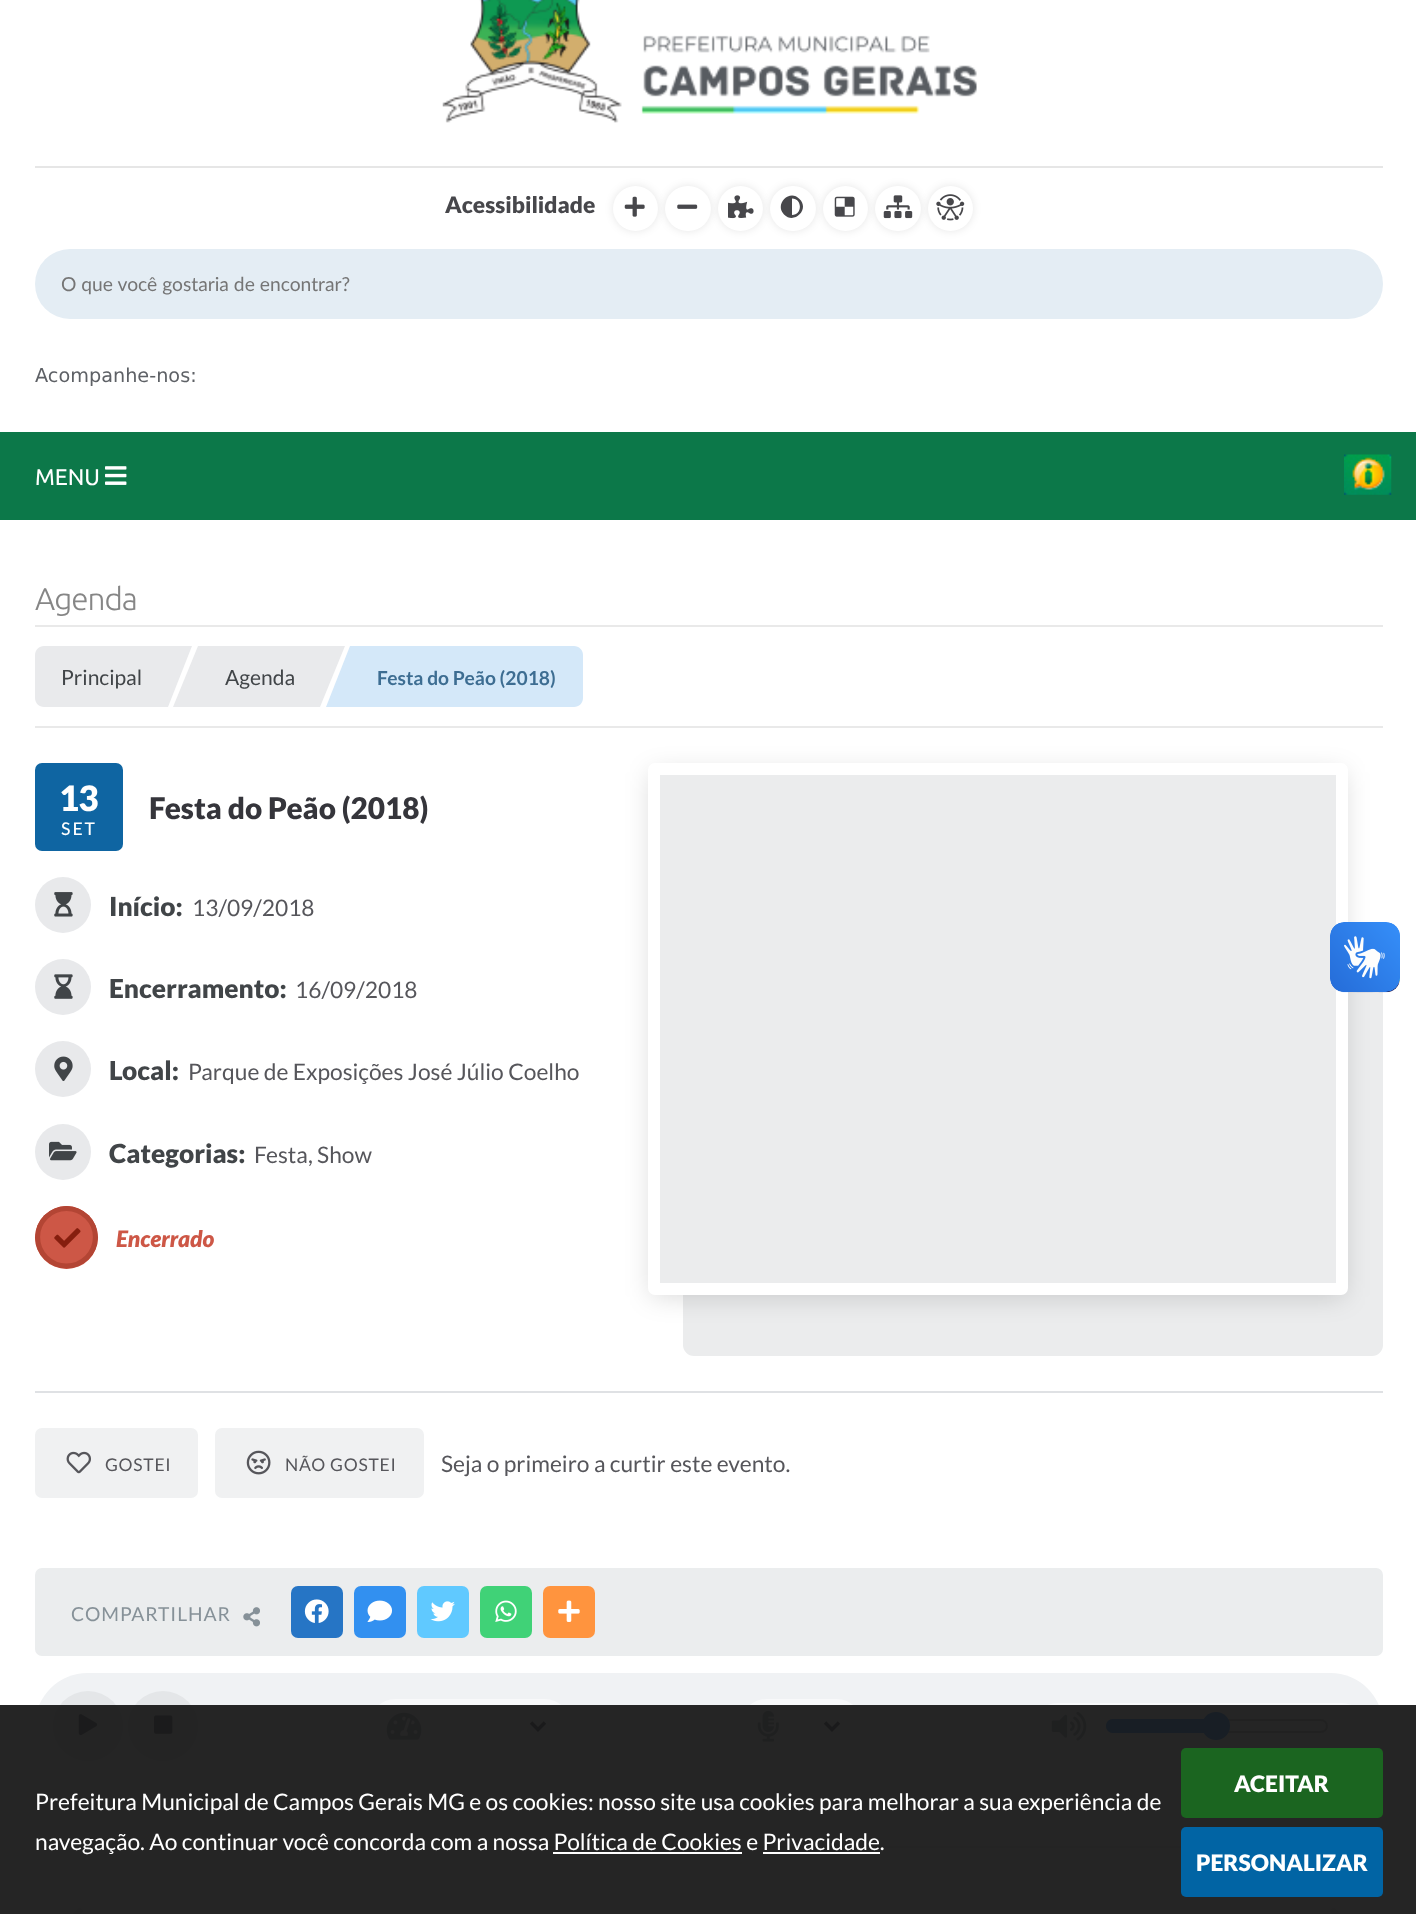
<svg xmlns="http://www.w3.org/2000/svg" width="1416" height="1914">
	<defs>
		<clipPath id="clip1"><rect x="35" y="1206" width="63" height="63" rx="31.5" /></clipPath>
	</defs>
	<rect width="100%" height="100%" fill="#FFFFFF" />
	<image x="442" y="0" width="535" height="123" href="assets/img1.png" />
	<rect x="35" y="166" width="1348" height="2" fill="#E6E6E6" />
	<text x="445" y="213" font-family="Lato" font-size="22.75" font-weight="900" fill="#47474B">Acessibilidade</text>
	<rect x="613" y="186" width="45" height="45" rx="22.5" fill="#000000" fill-opacity="0.1" filter="blur(4.5px)" />
	<circle cx="635.5" cy="208.5" r="22.5" fill="#FFFFFF" />
	<image x="624" y="196" width="21" height="21" href="assets/img2.png" />
	<rect x="665" y="186" width="46" height="45" rx="22.5" fill="#000000" fill-opacity="0.1" filter="blur(4.5px)" />
	<rect x="665" y="186" width="46" height="45" rx="22.5" fill="#FFFFFF" />
	<image x="677" y="204" width="21" height="5" href="assets/img3.png" />
	<rect x="718" y="186" width="45" height="45" rx="22.5" fill="#000000" fill-opacity="0.1" filter="blur(4.5px)" />
	<circle cx="740.5" cy="208.5" r="22.5" fill="#FFFFFF" />
	<image x="728" y="195" width="26" height="24" href="assets/img4.png" />
	<rect x="770" y="186" width="46" height="45" rx="22.5" fill="#000000" fill-opacity="0.1" filter="blur(4.5px)" />
	<rect x="770" y="186" width="46" height="45" rx="22.5" fill="#FFFFFF" />
	<path d="M784 214.5C774 204.5 789.5 188.5 799.5 199C810 209 794.5 225 784 214.5ZM792 215C802.5 215 802.5 198.5 792 198.5Z" fill="#47474B" />
	<rect x="823" y="186" width="45" height="45" rx="22.5" fill="#000000" fill-opacity="0.1" filter="blur(4.5px)" />
	<circle cx="845.5" cy="208.5" r="22.5" fill="#FFFFFF" />
	<image x="834" y="196" width="21" height="21" href="assets/img5.png" />
	<rect x="875" y="186" width="46" height="45" rx="22.5" fill="#000000" fill-opacity="0.1" filter="blur(4.5px)" />
	<rect x="875" y="186" width="46" height="45" rx="22.5" fill="#FFFFFF" />
	<image x="883" y="195" width="30" height="24" href="assets/img6.png" />
	<rect x="928" y="186" width="45" height="45" rx="22.5" fill="#000000" fill-opacity="0.1" filter="blur(4.5px)" />
	<circle cx="950.5" cy="208.5" r="22.5" fill="#FFFFFF" />
	<image x="936" y="194" width="29" height="27" href="assets/img7.png" />
	<rect x="35" y="249" width="1348" height="70" rx="35" fill="#E4EDF4" />
	<text x="61" y="291" font-family="Lato" font-size="19.25" fill="#757575">O que você gostaria de encontrar?</text>
	<text x="35" y="382" font-family="DejaVu Sans" font-size="19.25" fill="#5E6166">Acompanhe-nos:</text>
	<rect x="0" y="432" width="1416" height="88" fill="#0C7849" />
	<text x="35" y="485" font-family="Ubuntu" font-size="22.75" fill="#FFFFFF">MENU</text>
	<image x="105" y="466" width="22" height="19" href="assets/img8.png" />
	<image x="1344" y="454" width="48" height="41" href="assets/img9.png" />
	<text x="35" y="610" font-family="Ubuntu" font-size="31.5" font-weight="300" letter-spacing="-1" fill="#868686">Agenda</text>
	<rect x="35" y="625" width="1348" height="2" fill="#E9E9E9" />
	<rect x="35" y="726" width="1348" height="2" fill="#E9E9E9" />
	<path d="M44 646H168V707H44C39 707 35 703 35 698V655C35 650 39 646 44 646Z" fill="#E9EAEC" />
	<text x="61" y="685" font-family="'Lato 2'" font-size="21" fill="#414548">Principal</text>
	<path d="M168 646H192L168 707Z" fill="#E9EAEC" />
	<rect x="198" y="646" width="122" height="61" fill="#E9EAEC" />
	<path d="M198 707H173L198 646Z" fill="#E9EAEC" />
	<text x="225" y="685" font-family="'Lato 2'" font-size="21" fill="#414548">Agenda</text>
	<path d="M320 646H345L320 707Z" fill="#E9EAEC" />
	<path d="M350 646H574C579 646 583 650 583 655V698C583 703 579 707 574 707H350Z" fill="#D4E8F9" />
	<path d="M350 707H326L350 646Z" fill="#D4E8F9" />
	<text x="377" y="685" font-family="Lato" font-size="19.25" font-weight="700" fill="#3D6D92">Festa do Peão (2018)</text>
	<rect x="35" y="763" width="88" height="88" rx="7" fill="#0F65A2" />
	<text x="59" y="811" font-family="Lato" font-size="35" font-weight="900" letter-spacing="-1" fill="#FFFFFF">13</text>
	<text x="61" y="835" font-family="Lato" font-size="17.5" font-weight="500" letter-spacing="2" fill="#FFFFFF">SET</text>
	<text x="149" y="819" font-family="Lato" font-size="29.75" font-weight="900" fill="#35353B">Festa do Peão (2018)</text>
	<circle cx="63" cy="905" r="28" fill="#E8E9EB" />
	<image x="54" y="892" width="19" height="25" href="assets/img10.png" />
	<text x="109" y="916" font-family="Lato" font-size="26.25" font-weight="900" fill="#414548">Início:</text>
	<text x="192" y="916" font-family="'Lato 2'" font-size="22.75" fill="#56565B">13/09/2018</text>
	<circle cx="63" cy="987" r="28" fill="#E8E9EB" />
	<image x="54" y="974" width="19" height="25" href="assets/img11.png" />
	<text x="109" y="998" font-family="Lato" font-size="26.25" font-weight="900" fill="#414548">Encerramento:</text>
	<text x="295" y="998" font-family="'Lato 2'" font-size="22.75" fill="#56565B">16/09/2018</text>
	<circle cx="63" cy="1069" r="28" fill="#E8E9EB" />
	<image x="54" y="1056" width="19" height="25" href="assets/img12.png" />
	<text x="109" y="1080" font-family="Lato" font-size="26.25" font-weight="900" fill="#414548">Local:</text>
	<text x="188" y="1080" font-family="'Lato 2'" font-size="22.75" fill="#56565B">Parque de Exposições José Júlio Coelho</text>
	<circle cx="63" cy="1152" r="28" fill="#E8E9EB" />
	<image x="49" y="1141" width="28" height="20" href="assets/img13.png" />
	<text x="109" y="1163" font-family="Lato" font-size="26.25" font-weight="900" fill="#414548">Categorias:</text>
	<text x="254" y="1163" font-family="'Lato 2'" font-size="22.75" fill="#56565B">Festa, Show</text>
	<circle cx="66.5" cy="1237.5" r="31.5" fill="#CD5746" />
	<image x="54" y="1228" width="27" height="20" href="assets/img14.png" />
	<g clip-path="url(#clip1)">
		<path d="M66.5 1208.5C82.5 1208.5 95.5 1221.5 95.5 1237C95.5 1253 82.5 1266 66.5 1266C50.5 1266 37.5 1253 37.5 1237C37.5 1221.5 50.5 1208.5 66.5 1208.5" fill="none" stroke="#B34534" stroke-width="5.2" />
	</g>
	<text x="116" y="1247" font-family="Lato" font-size="22.75" font-weight="900" font-style="italic" fill="#CD5746">Encerrado</text>
	<rect x="683" y="963" width="700" height="393" rx="11" fill="#EBECED" />
	<rect x="651" y="772" width="693" height="525" rx="4" fill="#000000" fill-opacity="0.15" filter="blur(13px)" />
	<rect x="654" y="769" width="688" height="520" rx="1" fill="#EBECED" stroke="#FFFFFF" stroke-width="12" />
	<rect x="35" y="1391" width="1348" height="2" fill="#DFE1E4" />
	<rect x="35" y="1428" width="163" height="70" rx="7" fill="#F0F1F2" />
	<image x="66" y="1451" width="25" height="23" href="assets/img15.png" />
	<text x="105" y="1471" font-family="'Lato 2'" font-size="17.5" letter-spacing="0.75" fill="#56565B">GOSTEI</text>
	<rect x="215" y="1428" width="209" height="70" rx="7" fill="#F0F1F2" />
	<image x="246" y="1450" width="25" height="25" href="assets/img16.png" />
	<text x="285" y="1471" font-family="'Lato 2'" font-size="17.5" letter-spacing="0.75" fill="#56565B">NÃO GOSTEI</text>
	<text x="441" y="1472" font-family="'Lato 2'" font-size="22.75" fill="#56565B">Seja o primeiro a curtir este evento.</text>
	<rect x="35" y="1568" width="1348" height="88" rx="7" fill="#EBEDEE" />
	<text x="71" y="1621" font-family="'Lato 2'" font-size="19.25" letter-spacing="0.9" fill="#869198">COMPARTILHAR</text>
	<image x="243" y="1607" width="17" height="20" href="assets/img17.png" />
	<rect x="291" y="1586" width="52" height="52" rx="7" fill="#2675C5" />
	<image x="304" y="1599" width="25" height="24" href="assets/img18.png" />
	<rect x="354" y="1586" width="52" height="52" rx="7" fill="#3290F0" />
	<image x="367" y="1600" width="25" height="22" href="assets/img19.png" />
	<rect x="417" y="1586" width="52" height="52" rx="7" fill="#60C9FF" />
	<image x="430" y="1601" width="25" height="21" href="assets/img20.png" />
	<rect x="480" y="1586" width="52" height="52" rx="7" fill="#40D277" />
	<image x="495" y="1600" width="22" height="22" href="assets/img21.png" />
	<rect x="543" y="1586" width="52" height="52" rx="7" fill="#FF943E" />
	<image x="558" y="1600" width="22" height="22" href="assets/img22.png" />
	<rect x="35" y="1673" width="1348" height="105" rx="52.5" fill="#F0F2F4" />
	<circle cx="88" cy="1726" r="35" fill="#E4E6E8" />
	<image x="78" y="1714" width="20" height="22" href="assets/img23.png" />
	<circle cx="163" cy="1726" r="35" fill="#E4E6E8" />
	<image x="154" y="1715" width="19" height="19" href="assets/img24.png" />
	<rect x="369" y="1699" width="202" height="53" rx="26.5" fill="#F8F9FA" />
	<image x="386" y="1712" width="36" height="28" href="assets/img25.png" />
	<path d="M531 1722.5L538 1729.5L545 1722.5" fill="none" stroke="#35353B" stroke-width="3.5" />
	<rect x="740" y="1699" width="123" height="53" rx="26.5" fill="#F8F9FA" />
	<image x="757" y="1710" width="22" height="32" href="assets/img26.png" />
	<path d="M825 1722.5L832 1729.5L839 1722.5" fill="none" stroke="#35353B" stroke-width="3.5" />
	<rect x="1034" y="1703" width="331" height="47" rx="23.5" fill="#F8F9FA" />
	<image x="1051" y="1711" width="36" height="30" href="assets/img27.png" />
	<rect x="1107" y="1720" width="220" height="12" rx="6" fill="#EFEFEF" stroke="#B2B2B2" stroke-width="2" />
	<path d="M1113 1719H1216V1733H1113C1109 1733 1106 1730 1106 1726C1106 1722 1109 1719 1113 1719Z" fill="#0075FF" />
	<circle cx="1216" cy="1726" r="14" fill="#0075FF" />
	<rect x="35" y="1846" width="1146" height="2" fill="#E5E5E5" />
	<image x="73" y="1907" width="10" height="7" href="assets/img28.png" />
	<image x="1330" y="1907" width="11" height="7" href="assets/img29.png" />
	<image x="1330" y="922" width="70" height="71" href="assets/img30.png" />
	<image x="1330" y="922" width="70" height="70" href="assets/img31.png" />
	<rect x="0" y="1705" width="1416" height="209" fill="#191919" fill-opacity="0.95" />
	<g font-family="'Lato 2'" font-size="22.75" fill="#FFFFFF">
		<text x="35" y="1810">Prefeitura Municipal de Campos Gerais MG e os cookies: nosso site usa cookies para melhorar a sua experiência de</text>
		<text x="35" y="1850">navegação. Ao continuar você concorda com a nossa Política de Cookies e Privacidade.</text>
	</g>
	<rect x="553" y="1852" width="189" height="2" fill="#FFFFFF" />
	<rect x="763" y="1852" width="117" height="2" fill="#FFFFFF" />
	<rect x="1181" y="1748" width="202" height="70" rx="5" fill="#1B6520" />
	<text x="1234" y="1792" font-family="Lato" font-size="22.75" font-weight="900" fill="#FFFFFF">ACEITAR</text>
	<rect x="1181" y="1827" width="202" height="70" rx="5" fill="#0164A4" />
	<text x="1196" y="1871" font-family="Lato" font-size="22.75" font-weight="900" fill="#FFFFFF">PERSONALIZAR</text>
</svg>
